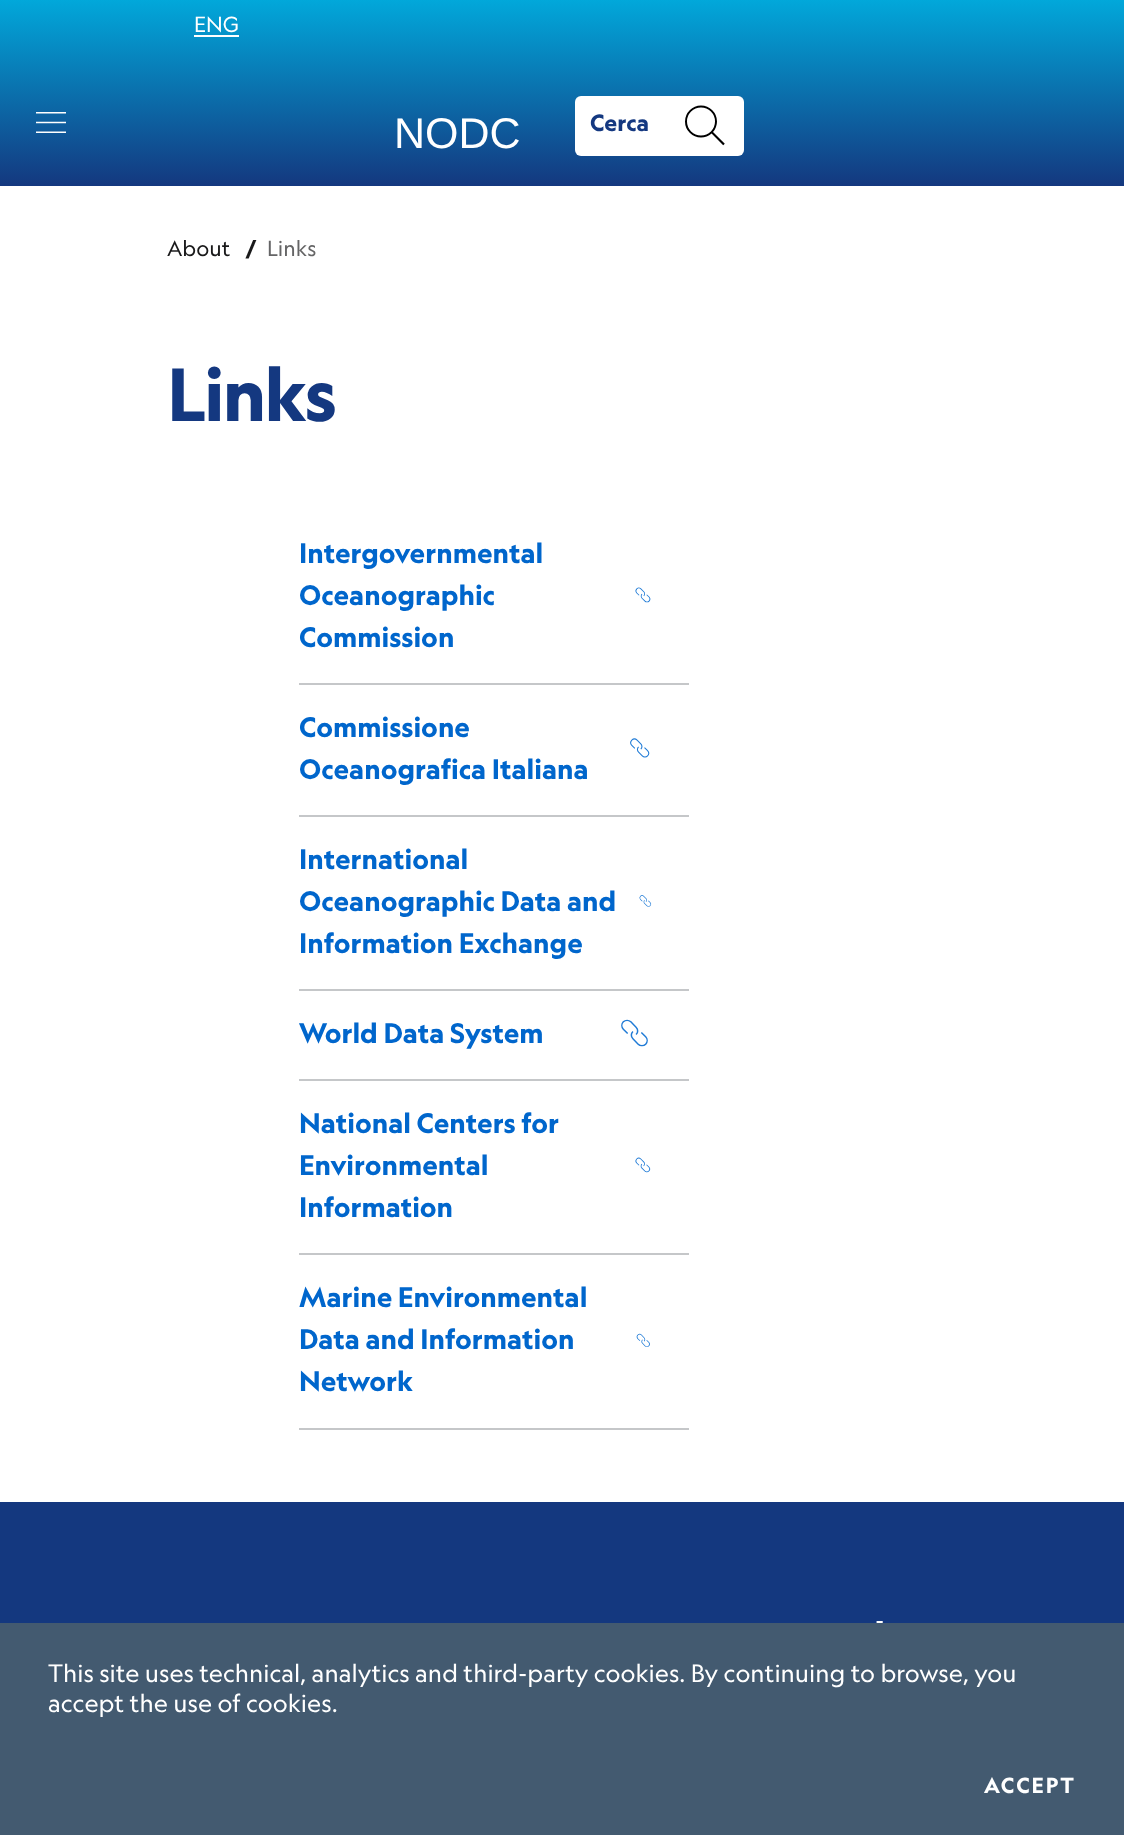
<svg xmlns="http://www.w3.org/2000/svg" width="1124" height="1835">
	<defs>
		<linearGradient id="g1" gradientUnits="userSpaceOnUse" x1="563" y1="-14" x2="563" y2="186"><stop offset="0" stop-color="#00B0E1" /><stop offset="1" stop-color="#14387F" /></linearGradient>
	</defs>
	<rect width="100%" height="100%" fill="#FFFFFF" />
	<rect x="0" y="0" width="1124" height="186" fill="url(#g1)" />
	<text x="194" y="32" font-family="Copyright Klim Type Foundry" font-size="21" fill="#FFFFFF">ENG</text>
	<rect x="194" y="35" width="45" height="2" fill="#FFFFFF" />
	<image x="36" y="112" width="30" height="21" href="assets/img1.png" />
	<text x="394" y="148" font-family="Liberation Sans" font-size="43" fill="#FFFFFF">NODC</text>
	<rect x="575" y="96" width="169" height="60" rx="6" fill="#FFFFFF" />
	<text x="590" y="131" font-family="Copyright Klim Type Foundry" font-size="22.5" font-weight="700" fill="#143880">Cerca</text>
	<image x="685" y="105" width="40" height="41" href="assets/img2.png" />
	<text x="167" y="256" font-family="Copyright Klim Type Foundry" font-size="21" fill="#19191A">About</text>
	<text x="245" y="256" font-family="Copyright Klim Type Foundry" font-size="21" font-weight="700" fill="#19191A">/</text>
	<text x="267" y="256" font-family="Copyright Klim Type Foundry" font-size="21" fill="#656566">Links</text>
	<text x="167" y="421" font-family="Copyright Klim Type Foundry" font-size="72" font-weight="700" letter-spacing="-2" fill="#143880">Links</text>
	<rect x="299" y="683" width="390" height="2" fill="#C5C7C9" />
	<g font-family="Copyright Klim Type Foundry" font-size="27" font-weight="700" fill="#0066CC">
		<text x="299" y="563">Intergovernmental</text>
		<text x="299" y="605">Oceanographic</text>
		<text x="299" y="647">Commission</text>
	</g>
	<image x="635" y="587" width="16" height="16" href="assets/img3.png" />
	<rect x="299" y="815" width="390" height="2" fill="#C5C7C9" />
	<g font-family="Copyright Klim Type Foundry" font-size="27" font-weight="700" fill="#0066CC">
		<text x="299" y="737">Commissione</text>
		<text x="299" y="779">Oceanografica Italiana</text>
	</g>
	<image x="630" y="738" width="20" height="20" href="assets/img4.png" />
	<rect x="299" y="989" width="390" height="2" fill="#C5C7C9" />
	<g font-family="Copyright Klim Type Foundry" font-size="27" font-weight="700" fill="#0066CC">
		<text x="299" y="869">International</text>
		<text x="299" y="911">Oceanographic Data and</text>
		<text x="299" y="953">Information Exchange</text>
	</g>
	<image x="639" y="895" width="13" height="12" href="assets/img5.png" />
	<rect x="299" y="1079" width="390" height="2" fill="#C5C7C9" />
	<text x="299" y="1043" font-family="Copyright Klim Type Foundry" font-size="27" font-weight="700" fill="#0066CC">World Data System</text>
	<image x="621" y="1019" width="27" height="28" href="assets/img6.png" />
	<rect x="299" y="1253" width="390" height="2" fill="#C5C7C9" />
	<g font-family="Copyright Klim Type Foundry" font-size="27" font-weight="700" fill="#0066CC">
		<text x="299" y="1133">National Centers for</text>
		<text x="299" y="1175">Environmental</text>
		<text x="299" y="1217">Information</text>
	</g>
	<image x="635" y="1157" width="16" height="16" href="assets/img7.png" />
	<rect x="299" y="1428" width="390" height="2" fill="#C5C7C9" />
	<g font-family="Copyright Klim Type Foundry" font-size="27" font-weight="700" fill="#0066CC">
		<text x="299" y="1307">Marine Environmental</text>
		<text x="299" y="1349">Data and Information</text>
		<text x="299" y="1391">Network</text>
	</g>
	<image x="636" y="1333" width="14" height="14" href="assets/img8.png" />
	<rect x="0" y="1502" width="1124" height="121" fill="#14387F" />
	<text x="875" y="1629" font-family="Copyright Klim Type Foundry" font-size="24" fill="#FFFFFF">-</text>
	<rect x="0" y="1623" width="1124" height="212" fill="#435A70" />
	<g font-family="Copyright Klim Type Foundry" font-size="24" fill="#FFFFFF">
		<text x="48" y="1682">This site uses technical, analytics and third-party cookies. By continuing to browse, you</text>
		<text x="48" y="1712">accept the use of cookies.</text>
	</g>
	<text x="984" y="1793" font-family="Copyright Klim Type Foundry" font-size="21" font-weight="700" letter-spacing="2" fill="#FFFFFF">ACCEPT</text>
</svg>
